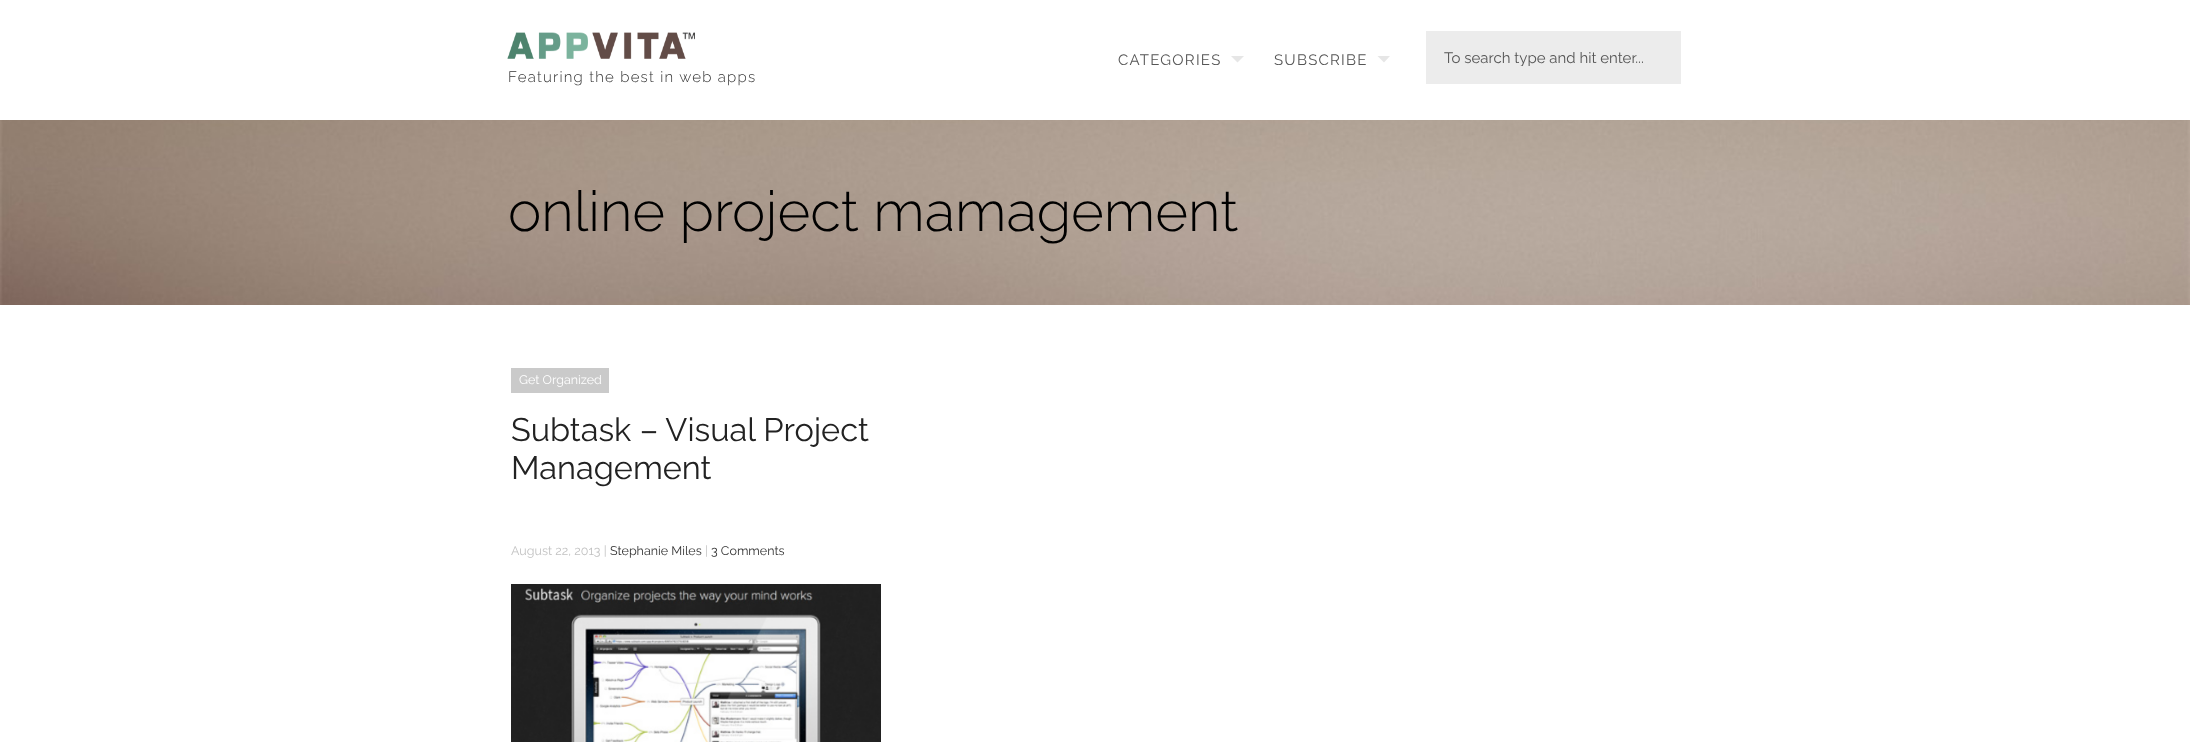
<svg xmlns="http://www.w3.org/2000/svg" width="2190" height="742">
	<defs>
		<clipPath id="clip1"><rect x="1444" y="49" width="220" height="17" /></clipPath>
	</defs>
	<rect width="100%" height="100%" fill="#FFFFFF" />
	<text x="1118" y="65" font-family="Raleway" font-size="15" letter-spacing="1.25" fill="#555555">CATEGORIES</text>
	<path d="M1231 56H1244L1237.5 62.5Z" fill="#E6E6E6" />
	<text x="1274" y="65" font-family="Raleway" font-size="15" letter-spacing="1.25" fill="#555555">SUBSCRIBE</text>
	<path d="M1377.5 56H1390L1384 62.5Z" fill="#E6E6E6" />
	<rect x="1426" y="31" width="255" height="53" fill="#ECECEC" />
	<g clip-path="url(#clip1)">
		<text x="1444" y="63" font-family="Raleway" font-size="15" fill="#555555">To search type and hit enter...</text>
	</g>
	<image x="507" y="32" width="188" height="27" href="assets/img1.png" />
	<text x="508" y="82" font-family="Raleway" font-size="15" font-weight="300" letter-spacing="1.25" fill="#333333">Featuring the best in web apps</text>
	<image x="0" y="120" width="2190" height="185" href="assets/img2.png" />
	<text x="508" y="231" font-family="Raleway" font-size="56.25" font-weight="300" fill="#000000">online project mamagement</text>
	<rect x="511" y="368" width="98" height="25" fill="#CACACA" />
	<text x="519" y="384" font-family="Raleway" font-size="12.5" fill="#FFFFFF">Get Organized</text>
	<g font-family="Raleway" font-size="32.5" fill="#222222">
		<text x="511" y="441">Subtask – Visual Project</text>
		<text x="511" y="479">Management</text>
	</g>
	<text x="511" y="555" font-family="Raleway" font-size="12.5" fill="#C2C2C2">August 22, 2013 |</text>
	<text x="610" y="555" font-family="Raleway" font-size="12.5" fill="#333333">Stephanie Miles</text>
	<text x="705" y="555" font-family="Raleway" font-size="12.5" fill="#C2C2C2">|</text>
	<text x="711" y="555" font-family="Raleway" font-size="12.5" fill="#333333">3 Comments</text>
	<image x="511" y="584" width="370" height="158" href="assets/img3.png" />
</svg>
